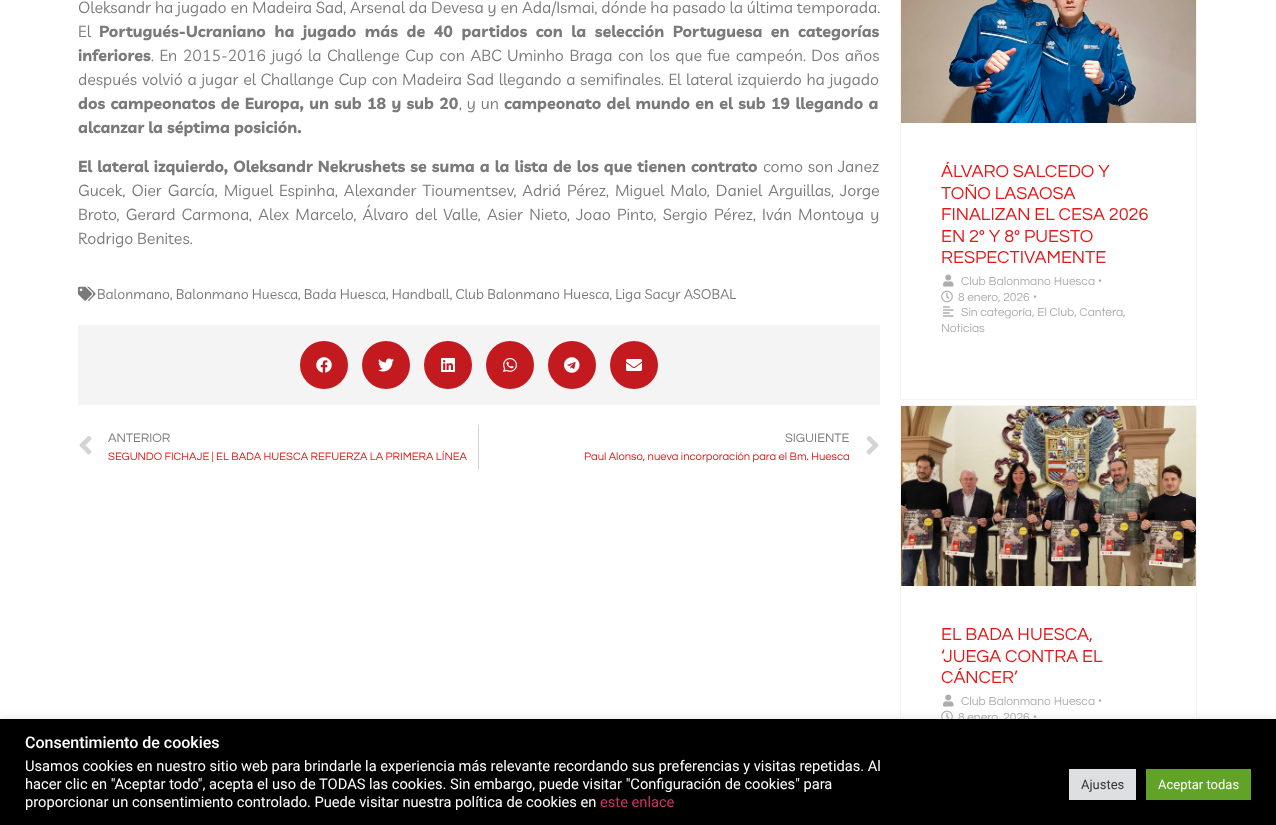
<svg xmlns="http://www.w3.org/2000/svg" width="1276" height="825">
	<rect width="100%" height="100%" fill="#FFFFFF" />
	<g font-family="Livvic" font-size="16" fill="#7A7A7A">
		<text x="78" y="13" word-spacing="0.2">Oleksandr ha jugado en Madeira Sad, Arsenal da Devesa y en Ada/Ismai, dónde ha pasado la última temporada.</text>
		<text x="78" y="37">El</text>
	</g>
	<g font-family="Livvic" font-size="16" font-weight="700" fill="#7A7A7A">
		<text x="99" y="37" word-spacing="4.5">Portugués-Ucraniano ha jugado más de 40 partidos con la selección Portuguesa en categorías</text>
		<text x="78" y="61">inferiores</text>
	</g>
	<g font-family="Livvic" font-size="16" fill="#7A7A7A">
		<text x="151" y="61" word-spacing="1.9">. En 2015-2016 jugó la Challenge Cup con ABC Uminho Braga con los que fue campeón. Dos años</text>
		<text x="78" y="85" word-spacing="1">después volvió a jugar el Challange Cup con Madeira Sad llegando a semifinales. El lateral izquierdo ha jugado</text>
	</g>
	<text x="78" y="109" word-spacing="1.25" font-family="Livvic" font-size="16" font-weight="700" fill="#7A7A7A">dos campeonatos de Europa, un sub 18 y sub 20</text>
	<text x="459" y="109" word-spacing="1.25" font-family="Livvic" font-size="16" fill="#7A7A7A">, y un</text>
	<g font-family="Livvic" font-size="16" font-weight="700" fill="#7A7A7A">
		<text x="504" y="109" word-spacing="1.25">campeonato del mundo en el sub 19 llegando a</text>
		<text x="78" y="133">alcanzar la séptima posición.</text>
		<text x="78" y="172" word-spacing="1">El lateral izquierdo, Oleksandr Nekrushets se suma a la lista de los que tienen contrato</text>
	</g>
	<g font-family="Livvic" font-size="16" fill="#7A7A7A">
		<text x="763" y="172" word-spacing="1">como son Janez</text>
		<text x="78" y="196" word-spacing="2.4">Gucek, Oier García, Miguel Espinha, Alexander Tioumentsev, Adriá Pérez, Miguel Malo, Daniel Arguillas, Jorge</text>
		<text x="78" y="220" word-spacing="2.6">Broto, Gerard Carmona, Alex Marcelo, Álvaro del Valle, Asier Nieto, Joao Pinto, Sergio Pérez, Iván Montoya y</text>
		<text x="78" y="244">Rodrigo Benites.</text>
	</g>
	<image x="78" y="286" width="18" height="15" href="assets/img1.png" />
	<g font-family="Livvic" font-size="14" fill="#7A7A7A">
		<text x="97" y="299">Balonmano</text>
		<text x="170" y="299">, Balonmano Huesca, Bada Huesca, Handball, Club Balonmano Huesca, Liga Sacyr ASOBAL</text>
	</g>
	<rect x="78" y="325" width="802" height="80" fill="#F4F4F4" />
	<circle cx="324" cy="365" r="24" fill="#C31A1F" />
	<image x="316" y="357" width="16" height="16" href="assets/img2.png" />
	<circle cx="386" cy="365" r="24" fill="#C31A1F" />
	<image x="378" y="358" width="16" height="14" href="assets/img3.png" />
	<circle cx="448" cy="365" r="24" fill="#C31A1F" />
	<image x="441" y="358" width="14" height="14" href="assets/img4.png" />
	<circle cx="510" cy="365" r="24" fill="#C31A1F" />
	<image x="503" y="358" width="14" height="14" href="assets/img5.png" />
	<circle cx="572" cy="365" r="24" fill="#C31A1F" />
	<image x="564" y="357" width="16" height="16" href="assets/img6.png" />
	<circle cx="634" cy="365" r="24" fill="#C31A1F" />
	<image x="626" y="359" width="16" height="12" href="assets/img7.png" />
	<image x="79" y="436" width="13" height="19" href="assets/img8.png" />
	<text x="108" y="442" font-family="Questrial" font-size="12.75" fill="#7A7A7A">ANTERIOR</text>
	<text x="108" y="460" font-family="Questrial" font-size="11.2" fill="#E31818">SEGUNDO FICHAJE | EL BADA HUESCA REFUERZA LA PRIMERA LÍNEA</text>
	<rect x="478" y="425" width="1" height="45" fill="#D4D4D4" />
	<text x="785" y="442" font-family="Questrial" font-size="12.75" fill="#7A7A7A">SIGUIENTE</text>
	<text x="584" y="460" font-family="Questrial" font-size="11.2" fill="#E31818">Paul Alonso, nueva incorporación para el Bm. Huesca</text>
	<image x="866" y="436" width="13" height="19" href="assets/img9.png" />
	<rect x="900.5" y="-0.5" width="296" height="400" fill="none" stroke="#F4F4F4" />
	<image x="901" y="0" width="295" height="123" href="assets/img10.png" />
	<g font-family="Questrial" font-size="18" fill="#E31818">
		<text x="941" y="177">ÁLVARO SALCEDO Y</text>
		<text x="941" y="199">TOÑO LASAOSA</text>
		<text x="941" y="220">FINALIZAN EL CESA 2026</text>
		<text x="941" y="242">EN 2º Y 8º PUESTO</text>
		<text x="941" y="263">RESPECTIVAMENTE</text>
	</g>
	<image x="943" y="274" width="11" height="13" href="assets/img11.png" />
	<text x="961" y="285" font-family="Questrial" font-size="12" fill="#ADADAD">Club Balonmano Huesca</text>
	<text x="1098" y="285" font-family="Roboto" font-size="12" fill="#ADADAD">•</text>
	<image x="941" y="290" width="12" height="13" href="assets/img12.png" />
	<text x="958" y="301" font-family="Questrial" font-size="12" fill="#ADADAD">8 enero, 2026</text>
	<text x="1033" y="301" font-family="Roboto" font-size="12" fill="#ADADAD">•</text>
	<image x="943" y="306" width="11" height="11" href="assets/img13.png" />
	<g font-family="Questrial" font-size="12" fill="#ADADAD">
		<text x="961" y="316">Sin categoría, El Club, Cantera,</text>
		<text x="941" y="332">Noticias</text>
	</g>
	<rect x="900.5" y="405.5" width="296" height="414" fill="none" stroke="#F4F4F4" />
	<image x="901" y="406" width="295" height="180" href="assets/img14.png" />
	<g font-family="Questrial" font-size="18" fill="#E31818">
		<text x="941" y="640">EL BADA HUESCA,</text>
		<text x="941" y="662">‘JUEGA CONTRA EL</text>
		<text x="941" y="683">CÁNCER’</text>
	</g>
	<image x="943" y="694" width="11" height="13" href="assets/img11.png" />
	<text x="961" y="705" font-family="Questrial" font-size="12" fill="#ADADAD">Club Balonmano Huesca</text>
	<text x="1098" y="705" font-family="Roboto" font-size="12" fill="#ADADAD">•</text>
	<image x="941" y="710" width="12" height="9" href="assets/img15.png" />
	<text x="958" y="721" font-family="Questrial" font-size="12" fill="#ADADAD">8 enero, 2026</text>
	<text x="1033" y="721" font-family="Roboto" font-size="12" fill="#ADADAD">•</text>
	<rect x="0" y="718" width="1276" height="106" fill="#ACABAB" fill-opacity="0.3" filter="blur(5px)" />
	<rect x="0" y="719" width="1276" height="106" fill="#000000" />
	<text x="25" y="748" font-family="Roboto" font-size="16" font-weight="500" fill="#FFFFFF">Consentimiento de cookies</text>
	<g font-family="Roboto" font-size="14.67" fill="#FFFFFF">
		<text x="25" y="771">Usamos cookies en nuestro sitio web para brindarle la experiencia más relevante recordando sus preferencias y visitas repetidas. Al</text>
		<text x="25" y="789">hacer clic en "Aceptar todo", acepta el uso de TODAS las cookies. Sin embargo, puede visitar "Configuración de cookies" para</text>
		<text x="25" y="807">proporcionar un consentimiento controlado. Puede visitar nuestra política de cookies en</text>
	</g>
	<text x="600" y="807" font-family="Roboto" font-size="14.67" fill="#CC3366">este enlace</text>
	<rect x="1069" y="769" width="67" height="31" fill="#DEDFE0" />
	<text x="1081" y="789" font-family="Roboto" font-size="13" fill="#333333">Ajustes</text>
	<rect x="1146" y="769" width="105" height="31" fill="#61A229" />
	<text x="1158" y="789" font-family="Roboto" font-size="13" fill="#FFFFFF">Aceptar todas</text>
</svg>
